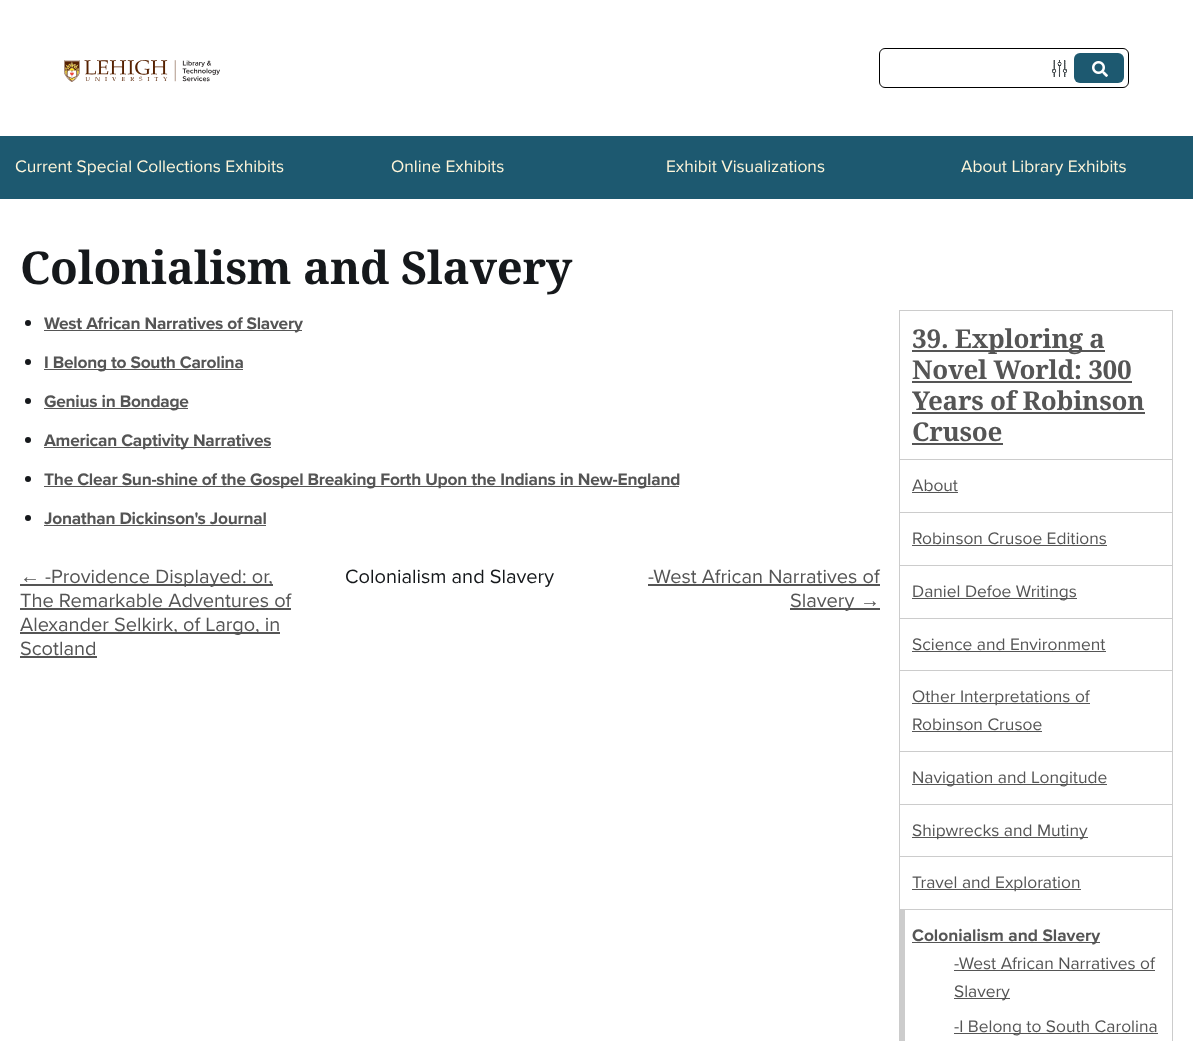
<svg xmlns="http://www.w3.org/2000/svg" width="1193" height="1041">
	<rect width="100%" height="100%" fill="#FFFFFF" />
	<image x="64" y="60" width="156" height="22" href="assets/img1.png" />
	<rect x="879.5" y="48.5" width="249" height="39" rx="5.5" fill="none" stroke="#000000" />
	<image x="1052" y="60" width="15" height="17" href="assets/img2.png" />
	<rect x="1074" y="53" width="50" height="30" rx="6" fill="#1D5970" />
	<image x="1092" y="61" width="16" height="16" href="assets/img3.png" />
	<rect x="0" y="136" width="1193" height="63" fill="#1D5970" />
	<g font-family="Proxima Nova" font-size="17.35" fill="#FFF6DA">
		<text x="15" y="172">Current Special Collections Exhibits</text>
		<text x="391" y="172">Online Exhibits</text>
		<text x="666" y="172">Exhibit Visualizations</text>
		<text x="961" y="172">About Library Exhibits</text>
	</g>
	<text x="20" y="284" font-family="Noto Serif" font-size="45.4" font-weight="700" letter-spacing="-0.25" fill="#15181B">Colonialism and Slavery</text>
	<circle cx="28" cy="323" r="3" fill="#15181B" />
	<rect x="44" y="330" width="258" height="1" fill="#555555" />
	<text x="44" y="329" font-family="Proxima Nova" font-size="17.35" font-weight="700" letter-spacing="-0.25" fill="#555555">West African Narratives of Slavery</text>
	<circle cx="28" cy="362" r="3" fill="#15181B" />
	<rect x="44" y="369" width="199" height="1" fill="#555555" />
	<text x="44" y="368" font-family="Proxima Nova" font-size="17.35" font-weight="700" letter-spacing="-0.25" fill="#555555">I Belong to South Carolina</text>
	<circle cx="28" cy="401" r="3" fill="#15181B" />
	<rect x="44" y="408" width="144" height="1" fill="#555555" />
	<text x="44" y="407" font-family="Proxima Nova" font-size="17.35" font-weight="700" letter-spacing="-0.25" fill="#555555">Genius in Bondage</text>
	<circle cx="28" cy="440" r="3" fill="#15181B" />
	<rect x="44" y="447" width="227" height="1" fill="#555555" />
	<text x="44" y="446" font-family="Proxima Nova" font-size="17.35" font-weight="700" letter-spacing="-0.25" fill="#555555">American Captivity Narratives</text>
	<circle cx="28" cy="479" r="3" fill="#15181B" />
	<rect x="44" y="486" width="635" height="1" fill="#555555" />
	<text x="44" y="485" font-family="Proxima Nova" font-size="17.35" font-weight="700" letter-spacing="-0.25" fill="#555555">The Clear Sun-shine of the Gospel Breaking Forth Upon the Indians in New-England</text>
	<circle cx="28" cy="518" r="3" fill="#15181B" />
	<text x="44" y="524" font-family="Proxima Nova" font-size="17.35" font-weight="700" letter-spacing="-0.25" fill="#555555">Jonathan Dickinson's Journal</text>
	<rect x="44" y="525" width="222" height="1" fill="#555555" />
	<rect x="1172" y="310" width="1" height="731" fill="#CCCCCC" />
	<rect x="899" y="310" width="1" height="731" fill="#CCCCCC" />
	<rect x="900" y="310" width="272" height="1" fill="#CCCCCC" />
	<rect x="900" y="459" width="272" height="1" fill="#CCCCCC" />
	<rect x="912" y="350" width="193" height="2" fill="#555555" />
	<g font-family="Noto Serif" font-size="26" font-weight="700" letter-spacing="-0.25" fill="#555555">
		<text x="912" y="348">39. Exploring a</text>
		<text x="912" y="379">Novel World: 300</text>
	</g>
	<rect x="912" y="381" width="220" height="2" fill="#555555" />
	<text x="912" y="410" font-family="Noto Serif" font-size="26" font-weight="700" letter-spacing="-0.25" fill="#555555">Years of Robinson</text>
	<rect x="912" y="412" width="233" height="2" fill="#555555" />
	<text x="912" y="441" font-family="Noto Serif" font-size="26" font-weight="700" letter-spacing="-0.25" fill="#555555">Crusoe</text>
	<rect x="912" y="443" width="91" height="2" fill="#555555" />
	<rect x="900" y="512" width="272" height="1" fill="#CCCCCC" />
	<text x="912" y="491" font-family="Proxima Nova" font-size="17.35" fill="#555555">About</text>
	<rect x="912" y="492" width="46" height="1" fill="#555555" />
	<rect x="900" y="565" width="272" height="1" fill="#CCCCCC" />
	<text x="912" y="544" font-family="Proxima Nova" font-size="17.35" fill="#555555">Robinson Crusoe Editions</text>
	<rect x="912" y="545" width="195" height="1" fill="#555555" />
	<rect x="900" y="618" width="272" height="1" fill="#CCCCCC" />
	<rect x="912" y="598" width="165" height="1" fill="#555555" />
	<text x="912" y="597" font-family="Proxima Nova" font-size="17.35" fill="#555555">Daniel Defoe Writings</text>
	<rect x="900" y="670" width="272" height="1" fill="#CCCCCC" />
	<text x="912" y="650" font-family="Proxima Nova" font-size="17.35" fill="#555555">Science and Environment</text>
	<rect x="912" y="651" width="194" height="1" fill="#555555" />
	<rect x="900" y="751" width="272" height="1" fill="#CCCCCC" />
	<rect x="912" y="703" width="178" height="1" fill="#555555" />
	<g font-family="Proxima Nova" font-size="17.35" fill="#555555">
		<text x="912" y="702">Other Interpretations of</text>
		<text x="912" y="730">Robinson Crusoe</text>
	</g>
	<rect x="912" y="731" width="130" height="1" fill="#555555" />
	<rect x="900" y="804" width="272" height="1" fill="#CCCCCC" />
	<rect x="912" y="784" width="195" height="1" fill="#555555" />
	<text x="912" y="783" font-family="Proxima Nova" font-size="17.35" fill="#555555">Navigation and Longitude</text>
	<rect x="900" y="856" width="272" height="1" fill="#CCCCCC" />
	<rect x="912" y="837" width="176" height="1" fill="#555555" />
	<text x="912" y="836" font-family="Proxima Nova" font-size="17.35" fill="#555555">Shipwrecks and Mutiny</text>
	<rect x="900" y="909" width="272" height="1" fill="#CCCCCC" />
	<rect x="912" y="889" width="169" height="1" fill="#555555" />
	<text x="912" y="888" font-family="Proxima Nova" font-size="17.35" fill="#555555">Travel and Exploration</text>
	<rect x="900" y="910" width="5" height="131" fill="#CCCCCC" />
	<rect x="912" y="942" width="188" height="1" fill="#555555" />
	<text x="912" y="941" font-family="Proxima Nova" font-size="17.35" font-weight="700" fill="#555555">Colonialism and Slavery</text>
	<text x="954" y="969" font-family="Proxima Nova" font-size="17.35" fill="#555555">-West African Narratives of</text>
	<rect x="954" y="970" width="201" height="1" fill="#555555" />
	<rect x="954" y="998" width="56" height="1" fill="#555555" />
	<text x="954" y="997" font-family="Proxima Nova" font-size="17.35" fill="#555555">Slavery</text>
	<rect x="954" y="1033" width="204" height="1" fill="#555555" />
	<text x="954" y="1032" font-family="Proxima Nova" font-size="17.35" fill="#555555">-I Belong to South Carolina</text>
	<text x="20" y="583" font-family="Liberation Sans" font-size="20" fill="#555555">←</text>
	<rect x="20" y="584" width="253" height="2" fill="#555555" />
	<g font-family="Proxima Nova" font-size="20" fill="#555555">
		<text x="45" y="583">-Providence Displayed: or,</text>
		<text x="20" y="607">The Remarkable Adventures of</text>
	</g>
	<rect x="20" y="608" width="271" height="2" fill="#555555" />
	<rect x="20" y="632" width="260" height="2" fill="#555555" />
	<g font-family="Proxima Nova" font-size="20" fill="#555555">
		<text x="20" y="631">Alexander Selkirk, of Largo, in</text>
		<text x="20" y="655">Scotland</text>
	</g>
	<rect x="20" y="656" width="77" height="2" fill="#555555" />
	<text x="345" y="583" font-family="Proxima Nova" font-size="20" fill="#15181B">Colonialism and Slavery</text>
	<text x="648" y="583" font-family="Proxima Nova" font-size="20" fill="#555555">-West African Narratives of</text>
	<rect x="648" y="584" width="232" height="2" fill="#555555" />
	<rect x="790" y="608" width="90" height="2" fill="#555555" />
	<text x="790" y="607" font-family="Proxima Nova" font-size="20" fill="#555555">Slavery</text>
	<text x="860" y="607" font-family="Liberation Sans" font-size="20" fill="#555555">→</text>
</svg>
